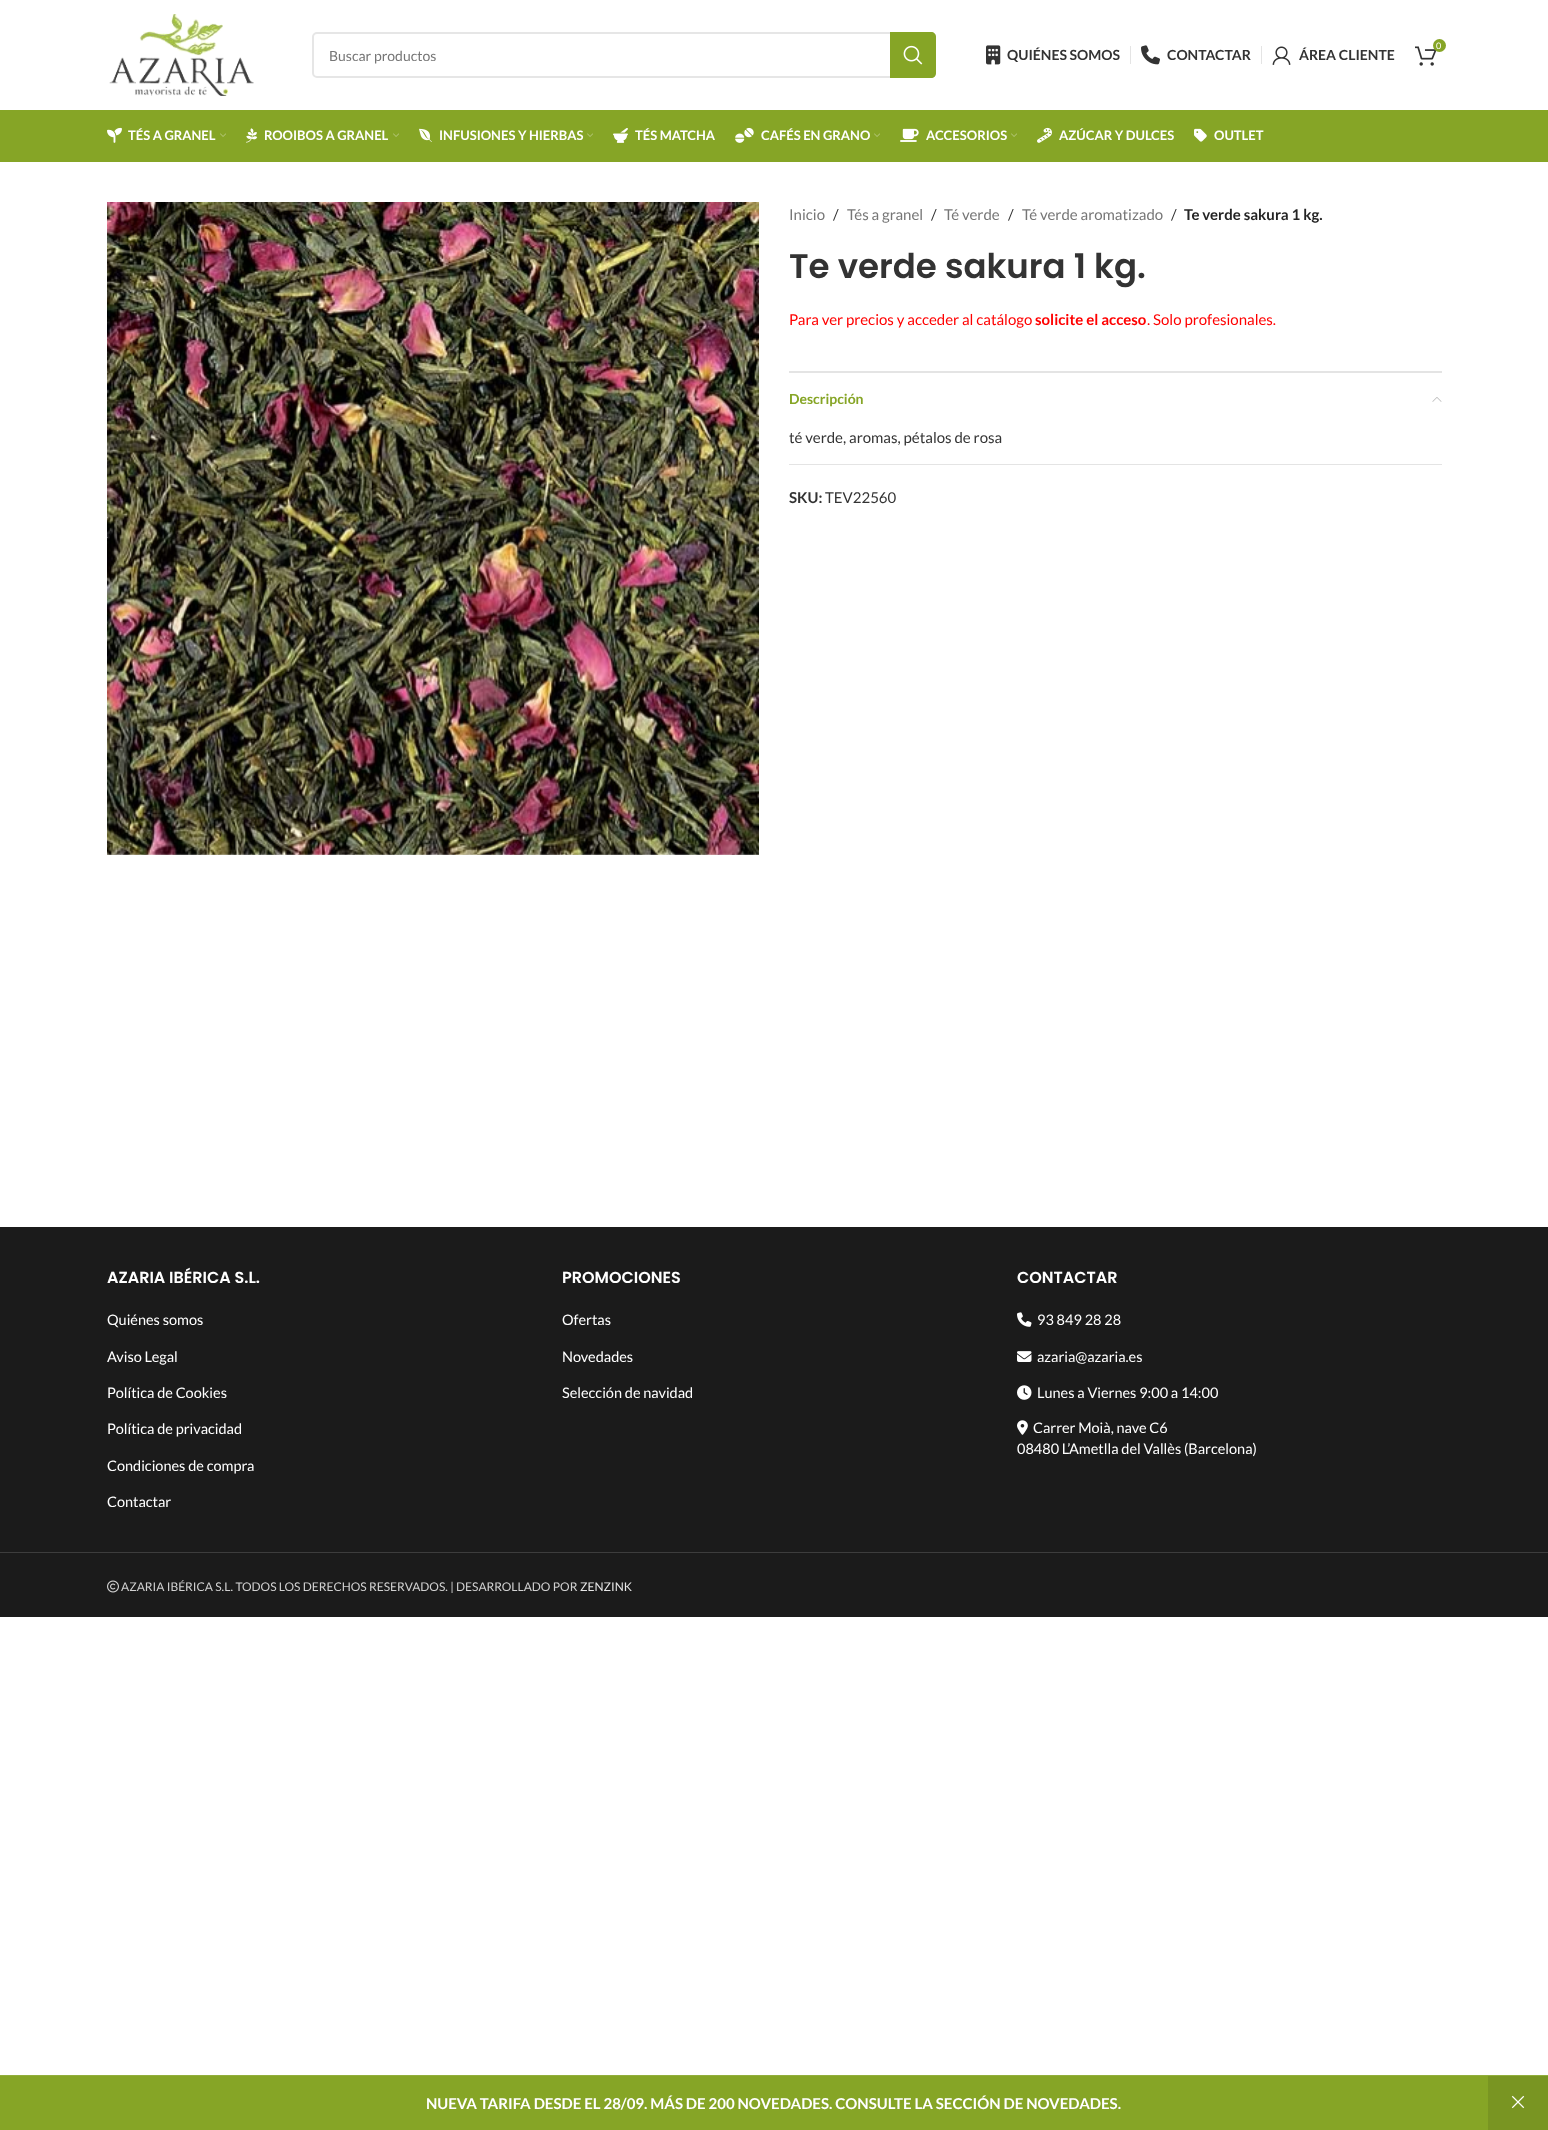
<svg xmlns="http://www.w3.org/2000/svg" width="1548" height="2130">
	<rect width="100%" height="100%" fill="#FFFFFF" />
	<image x="109" y="14" width="145" height="82" href="assets/img1.png" />
	<rect x="313" y="33" width="622" height="44" rx="4" fill="none" stroke="#E6E6E6" stroke-width="2" />
	<text x="329" y="61" font-family="Lato" font-size="14" fill="#767676">Buscar productos</text>
	<path d="M890 32H931C934 32 936 34 936 37V73C936 76 934 78 931 78H890Z" fill="#86A526" />
	<image x="903" y="45" width="20" height="20" href="assets/img2.png" />
	<image x="986" y="45" width="15" height="20" href="assets/img3.png" />
	<text x="1007" y="60" font-family="Lato" font-size="14" font-weight="700" fill="#333333">QUIÉNES SOMOS</text>
	<rect x="1130" y="46" width="1" height="18" fill="#E4E4E4" />
	<image x="1141" y="45" width="19" height="20" href="assets/img4.png" />
	<text x="1167" y="60" font-family="Lato" font-size="14" font-weight="700" fill="#333333">CONTACTAR</text>
	<rect x="1261" y="46" width="1" height="18" fill="#E4E4E4" />
	<image x="1272" y="46" width="19" height="19" href="assets/img5.png" />
	<text x="1299" y="60" font-family="Lato" font-size="14" font-weight="700" fill="#333333">ÁREA CLIENTE</text>
	<image x="1415" y="46" width="22" height="20" href="assets/img6.png" />
	<circle cx="1439.5" cy="45.5" r="6.5" fill="#86A526" />
	<text x="1436" y="49" font-family="Lato" font-size="9" fill="#FFFFFF">0</text>
	<rect x="0" y="110" width="1548" height="52" fill="#86A526" />
	<image x="107" y="127" width="15" height="16" href="assets/img7.png" />
	<text x="128" y="140" font-family="Lato" font-size="13" font-weight="700" fill="#FFFFFF">TÉS A GRANEL</text>
	<image x="220" y="133" width="6" height="4" href="assets/img8.png" />
	<image x="246" y="128" width="12" height="15" href="assets/img9.png" />
	<text x="264" y="140" font-family="Lato" font-size="13" font-weight="700" fill="#FFFFFF">ROOIBOS A GRANEL</text>
	<image x="393" y="133" width="6" height="4" href="assets/img8.png" />
	<image x="419" y="128" width="13" height="14" href="assets/img10.png" />
	<text x="439" y="140" font-family="Lato" font-size="13" font-weight="700" fill="#FFFFFF">INFUSIONES Y HIERBAS</text>
	<image x="587" y="133" width="6" height="4" href="assets/img8.png" />
	<image x="613" y="128" width="15" height="15" href="assets/img11.png" />
	<text x="635" y="140" font-family="Lato" font-size="13" font-weight="700" fill="#FFFFFF">TÉS MATCHA</text>
	<image x="735" y="127" width="19" height="16" href="assets/img12.png" />
	<text x="761" y="140" font-family="Lato" font-size="13" font-weight="700" fill="#FFFFFF">CAFÉS EN GRANO</text>
	<image x="874" y="133" width="6" height="4" href="assets/img8.png" />
	<image x="900" y="128" width="19" height="14" href="assets/img13.png" />
	<text x="926" y="140" font-family="Lato" font-size="13" font-weight="700" fill="#FFFFFF">ACCESORIOS</text>
	<image x="1011" y="133" width="6" height="4" href="assets/img8.png" />
	<image x="1037" y="127" width="15" height="16" href="assets/img14.png" />
	<text x="1059" y="140" font-family="Lato" font-size="13" font-weight="700" fill="#FFFFFF">AZÚCAR Y DULCES</text>
	<image x="1194" y="128" width="13" height="14" href="assets/img15.png" />
	<text x="1214" y="140" font-family="Lato" font-size="13" font-weight="700" fill="#FFFFFF">OUTLET</text>
	<image x="107" y="202" width="652" height="653" href="assets/img16.png" />
	<path d="M107.5 517.5L106.5 516.5L95 527.5L106.5 538.5L107.5 537.5L98 527.5Z" fill="#FFFFFF" />
	<text x="789" y="220" font-family="Lato" font-size="15" fill="#767676">Inicio</text>
	<text x="833" y="220" font-family="Lato" font-size="15" fill="#333333">/</text>
	<text x="847" y="220" font-family="Lato" font-size="15" fill="#767676">Tés a granel</text>
	<text x="931" y="220" font-family="Lato" font-size="15" fill="#333333">/</text>
	<text x="944" y="220" font-family="Lato" font-size="15" fill="#767676">Té verde</text>
	<text x="1008" y="220" font-family="Lato" font-size="15" fill="#333333">/</text>
	<text x="1022" y="220" font-family="Lato" font-size="15" fill="#767676">Té verde aromatizado</text>
	<text x="1171" y="220" font-family="Lato" font-size="15" fill="#333333">/</text>
	<text x="1184" y="220" font-family="Lato" font-size="15" font-weight="700" fill="#242424">Te verde sakura 1 kg.</text>
	<text x="789" y="278" font-family="Poppins" font-size="34" font-weight="600" fill="#333333">Te verde sakura 1 kg.</text>
	<text x="789" y="325" font-family="Lato" font-size="15" fill="#FF0000">Para ver precios y acceder al catálogo</text>
	<text x="1035" y="325" font-family="Lato" font-size="15" font-weight="700" fill="#FF0000">solicite el acceso</text>
	<text x="1147" y="325" font-family="Lato" font-size="15" fill="#FF0000">. Solo profesionales.</text>
	<rect x="789" y="371" width="653" height="2" fill="#E4E4E4" />
	<rect x="789" y="464" width="653" height="1" fill="#E4E4E4" />
	<text x="789" y="404" font-family="Lato" font-size="14" font-weight="700" fill="#86A526">Descripción</text>
	<image x="1432" y="397" width="10" height="5" href="assets/img17.png" />
	<text x="789" y="443" font-family="Lato" font-size="15" fill="#333333">té verde, aromas, pétalos de rosa</text>
	<text x="789" y="503" font-family="Lato" font-size="15" font-weight="700" fill="#333333">SKU:</text>
	<text x="825" y="503" font-family="Lato" font-size="15" fill="#333333">TEV22560</text>
	<rect x="0" y="1227" width="1548" height="390" fill="#1B1B1B" />
	<text x="107" y="1283" font-family="Poppins" font-size="16" font-weight="600" fill="#FFFFFF">AZARIA IBÉRICA S.L.</text>
	<g font-family="Lato" font-size="14.5" fill="#FFFFFF">
		<text x="107" y="1325">Quiénes somos</text>
		<text x="107" y="1362">Aviso Legal</text>
		<text x="107" y="1398">Política de Cookies</text>
		<text x="107" y="1434">Política de privacidad</text>
		<text x="107" y="1471">Condiciones de compra</text>
		<text x="107" y="1507">Contactar</text>
	</g>
	<text x="562" y="1283" font-family="Poppins" font-size="16" font-weight="600" fill="#FFFFFF">PROMOCIONES</text>
	<g font-family="Lato" font-size="14.5" fill="#FFFFFF">
		<text x="562" y="1325">Ofertas</text>
		<text x="562" y="1362">Novedades</text>
		<text x="562" y="1398">Selección de navidad</text>
	</g>
	<text x="1017" y="1283" font-family="Poppins" font-size="16" font-weight="600" fill="#FFFFFF">CONTACTAR</text>
	<image x="1017" y="1312" width="15" height="15" href="assets/img18.png" />
	<text x="1037" y="1325" font-family="Lato" font-size="14.5" fill="#FFFFFF">93 849 28 28</text>
	<image x="1017" y="1351" width="15" height="11" href="assets/img19.png" />
	<text x="1037" y="1362" font-family="Lato" font-size="14.5" fill="#FFFFFF">azaria@azaria.es</text>
	<image x="1017" y="1385" width="15" height="15" href="assets/img20.png" />
	<text x="1037" y="1398" font-family="Lato" font-size="14.5" fill="#FFFFFF">Lunes a Viernes 9:00 a 14:00</text>
	<image x="1017" y="1420" width="11" height="15" href="assets/img21.png" />
	<g font-family="Lato" font-size="14.5" fill="#FFFFFF">
		<text x="1033" y="1433">Carrer Moià, nave C6</text>
		<text x="1017" y="1454">08480 L’Ametlla del Vallès (Barcelona)</text>
	</g>
	<rect x="0" y="1552" width="1548" height="1" fill="#3D3D3D" />
	<image x="107" y="1580" width="12" height="13" href="assets/img22.png" />
	<text x="121" y="1591" font-family="Lato" font-size="12" fill="#D1D1D1">AZARIA IBÉRICA S.L. TODOS LOS DERECHOS RESERVADOS. | DESARROLLADO POR</text>
	<text x="580" y="1591" font-family="Lato" font-size="12" fill="#E8E8E8">ZENZINK</text>
	<rect x="0" y="2076" width="1488" height="54" fill="#86A526" />
	<rect x="0" y="2075" width="1548" height="1" fill="#92AE3C" />
	<text x="426" y="2109" font-family="Lato" font-size="15" font-weight="700" fill="#FFFFFF">NUEVA TARIFA DESDE EL 28/09. MÁS DE 200 NOVEDADES. CONSULTE LA SECCIÓN DE NOVEDADES.</text>
	<rect x="1488" y="2076" width="60" height="54" fill="#799522" />
	<image x="1511" y="2095" width="14" height="14" href="assets/img23.png" />
</svg>
